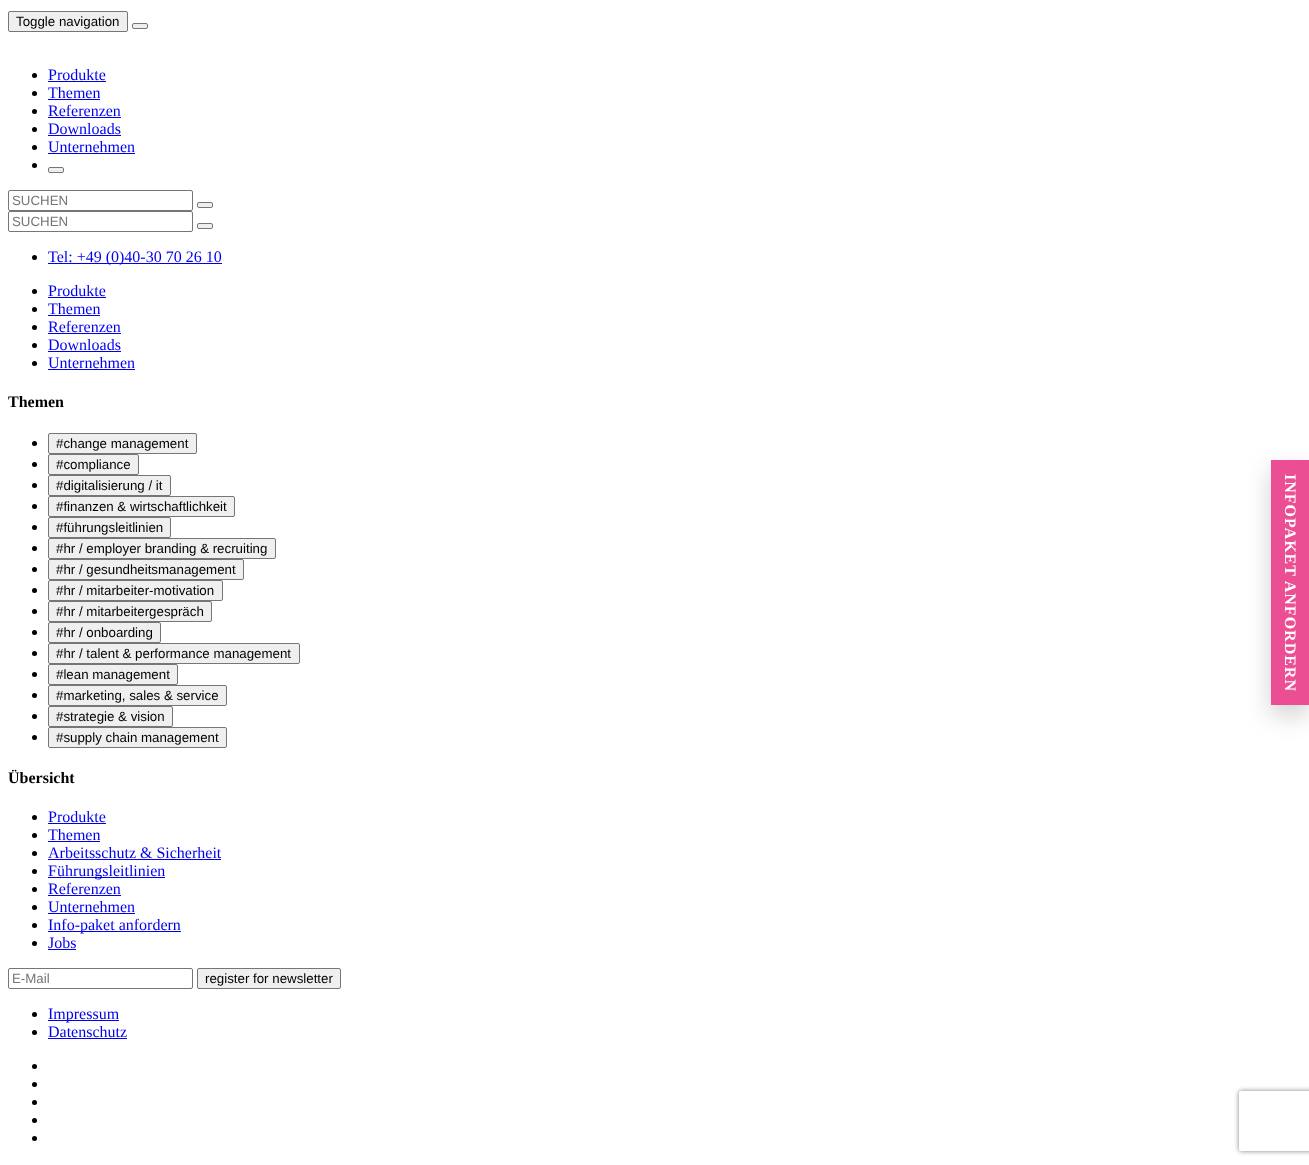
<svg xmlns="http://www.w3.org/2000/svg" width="1309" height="1165">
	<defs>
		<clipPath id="clip1"><path d="M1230 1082H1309V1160H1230ZM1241 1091H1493C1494 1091 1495 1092 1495 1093V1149C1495 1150 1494 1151 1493 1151H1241C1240 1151 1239 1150 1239 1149V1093C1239 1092 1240 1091 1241 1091Z" clip-rule="evenodd" /></clipPath>
	</defs>
	<rect width="100%" height="100%" fill="#FFFFFF" />
	<rect x="8.5" y="11.5" width="119" height="20" rx="1.5" fill="#EFEFEF" stroke="#767676" />
	<text x="16" y="26" font-family="Liberation Sans" font-size="13.3" fill="#000000">Toggle navigation</text>
	<rect x="132.5" y="23.5" width="15" height="5" rx="1.5" fill="#EFEFEF" stroke="#767676" />
	<circle cx="34.5" cy="75.5" r="2.5" fill="#000000" />
	<text x="48" y="80" font-family="Liberation Serif" font-size="16" fill="#0000EE">Produkte</text>
	<rect x="48" y="81" width="58" height="1" fill="#0000EE" />
	<circle cx="34.5" cy="93.5" r="2.5" fill="#000000" />
	<text x="48" y="98" font-family="Liberation Serif" font-size="16" fill="#0000EE">Themen</text>
	<rect x="48" y="99" width="52" height="1" fill="#0000EE" />
	<circle cx="34.5" cy="111.5" r="2.5" fill="#000000" />
	<text x="48" y="116" font-family="Liberation Serif" font-size="16" fill="#0000EE">Referenzen</text>
	<rect x="48" y="117" width="73" height="1" fill="#0000EE" />
	<circle cx="34.5" cy="129.5" r="2.5" fill="#000000" />
	<text x="48" y="134" font-family="Liberation Serif" font-size="16" fill="#0000EE">Downloads</text>
	<rect x="48" y="135" width="73" height="1" fill="#0000EE" />
	<circle cx="34.5" cy="147.5" r="2.5" fill="#000000" />
	<text x="48" y="152" font-family="Liberation Serif" font-size="16" fill="#0000EE">Unternehmen</text>
	<rect x="48" y="153" width="87" height="1" fill="#0000EE" />
	<circle cx="34.5" cy="165.5" r="2.5" fill="#000000" />
	<rect x="48.5" y="167.5" width="15" height="5" rx="1.5" fill="#EFEFEF" stroke="#767676" />
	<rect x="8.5" y="190.5" width="184" height="20" rx="1.5" fill="none" stroke="#767676" />
	<text x="12" y="205" font-family="Liberation Sans" font-size="13.3" fill="#757575">SUCHEN</text>
	<rect x="197.5" y="202.5" width="15" height="5" rx="1.5" fill="#EFEFEF" stroke="#767676" />
	<rect x="8.5" y="211.5" width="184" height="20" rx="1.5" fill="none" stroke="#767676" />
	<text x="12" y="226" font-family="Liberation Sans" font-size="13.3" fill="#757575">SUCHEN</text>
	<rect x="197.5" y="223.5" width="15" height="5" rx="1.5" fill="#EFEFEF" stroke="#767676" />
	<circle cx="34.5" cy="257.5" r="2.5" fill="#000000" />
	<rect x="48" y="263" width="174" height="1" fill="#0000EE" />
	<text x="48" y="262" font-family="Liberation Serif" font-size="16" fill="#0000EE">Tel: +49 (0)40-30 70 26 10</text>
	<circle cx="34.5" cy="291.5" r="2.5" fill="#000000" />
	<text x="48" y="296" font-family="Liberation Serif" font-size="16" fill="#0000EE">Produkte</text>
	<rect x="48" y="297" width="58" height="1" fill="#0000EE" />
	<circle cx="34.5" cy="309.5" r="2.5" fill="#000000" />
	<text x="48" y="314" font-family="Liberation Serif" font-size="16" fill="#0000EE">Themen</text>
	<rect x="48" y="315" width="52" height="1" fill="#0000EE" />
	<circle cx="34.5" cy="327.5" r="2.5" fill="#000000" />
	<text x="48" y="332" font-family="Liberation Serif" font-size="16" fill="#0000EE">Referenzen</text>
	<rect x="48" y="333" width="73" height="1" fill="#0000EE" />
	<circle cx="34.5" cy="345.5" r="2.5" fill="#000000" />
	<text x="48" y="350" font-family="Liberation Serif" font-size="16" fill="#0000EE">Downloads</text>
	<rect x="48" y="351" width="73" height="1" fill="#0000EE" />
	<circle cx="34.5" cy="363.5" r="2.5" fill="#000000" />
	<text x="48" y="368" font-family="Liberation Serif" font-size="16" fill="#0000EE">Unternehmen</text>
	<rect x="48" y="369" width="87" height="1" fill="#0000EE" />
	<text x="8" y="407" font-family="Liberation Serif" font-size="16" font-weight="700" fill="#000000">Themen</text>
	<circle cx="34.5" cy="443.5" r="2.5" fill="#000000" />
	<rect x="48.5" y="433.5" width="148" height="20" rx="1.5" fill="#EFEFEF" stroke="#767676" />
	<text x="56" y="448" font-family="Liberation Sans" font-size="13.3" fill="#000000">#change management</text>
	<circle cx="34.5" cy="464.5" r="2.5" fill="#000000" />
	<rect x="48.5" y="454.5" width="90" height="20" rx="1.5" fill="#EFEFEF" stroke="#767676" />
	<text x="56" y="469" font-family="Liberation Sans" font-size="13.3" fill="#000000">#compliance</text>
	<circle cx="34.5" cy="485.5" r="2.5" fill="#000000" />
	<rect x="48.5" y="475.5" width="122" height="20" rx="1.5" fill="#EFEFEF" stroke="#767676" />
	<text x="56" y="490" font-family="Liberation Sans" font-size="13.3" fill="#000000">#digitalisierung / it</text>
	<circle cx="34.5" cy="506.5" r="2.5" fill="#000000" />
	<rect x="48.5" y="496.5" width="186" height="20" rx="1.5" fill="#EFEFEF" stroke="#767676" />
	<text x="56" y="511" font-family="Liberation Sans" font-size="13.3" fill="#000000">#finanzen &amp; wirtschaftlichkeit</text>
	<circle cx="34.5" cy="527.5" r="2.5" fill="#000000" />
	<rect x="48.5" y="517.5" width="122" height="20" rx="1.5" fill="#EFEFEF" stroke="#767676" />
	<text x="56" y="532" font-family="Liberation Sans" font-size="13.3" fill="#000000">#führungsleitlinien</text>
	<circle cx="34.5" cy="548.5" r="2.5" fill="#000000" />
	<rect x="48.5" y="538.5" width="227" height="20" rx="1.5" fill="#EFEFEF" stroke="#767676" />
	<text x="56" y="553" font-family="Liberation Sans" font-size="13.3" fill="#000000">#hr / employer branding &amp; recruiting</text>
	<circle cx="34.5" cy="569.5" r="2.5" fill="#000000" />
	<rect x="48.5" y="559.5" width="195" height="20" rx="1.5" fill="#EFEFEF" stroke="#767676" />
	<text x="56" y="574" font-family="Liberation Sans" font-size="13.3" fill="#000000">#hr / gesundheitsmanagement</text>
	<circle cx="34.5" cy="590.5" r="2.5" fill="#000000" />
	<rect x="48.5" y="580.5" width="174" height="20" rx="1.5" fill="#EFEFEF" stroke="#767676" />
	<text x="56" y="595" font-family="Liberation Sans" font-size="13.3" fill="#000000">#hr / mitarbeiter-motivation</text>
	<circle cx="34.5" cy="611.5" r="2.5" fill="#000000" />
	<rect x="48.5" y="601.5" width="163" height="20" rx="1.5" fill="#EFEFEF" stroke="#767676" />
	<text x="56" y="616" font-family="Liberation Sans" font-size="13.3" fill="#000000">#hr / mitarbeitergespräch</text>
	<circle cx="34.5" cy="632.5" r="2.5" fill="#000000" />
	<rect x="48.5" y="622.5" width="112" height="20" rx="1.5" fill="#EFEFEF" stroke="#767676" />
	<text x="56" y="637" font-family="Liberation Sans" font-size="13.3" fill="#000000">#hr / onboarding</text>
	<circle cx="34.5" cy="653.5" r="2.5" fill="#000000" />
	<rect x="48.5" y="643.5" width="251" height="20" rx="1.5" fill="#EFEFEF" stroke="#767676" />
	<text x="56" y="658" font-family="Liberation Sans" font-size="13.3" fill="#000000">#hr / talent &amp; performance management</text>
	<circle cx="34.5" cy="674.5" r="2.5" fill="#000000" />
	<rect x="48.5" y="664.5" width="129" height="20" rx="1.5" fill="#EFEFEF" stroke="#767676" />
	<text x="56" y="679" font-family="Liberation Sans" font-size="13.3" fill="#000000">#lean management</text>
	<circle cx="34.5" cy="695.5" r="2.5" fill="#000000" />
	<rect x="48.5" y="685.5" width="178" height="20" rx="1.5" fill="#EFEFEF" stroke="#767676" />
	<text x="56" y="700" font-family="Liberation Sans" font-size="13.3" fill="#000000">#marketing, sales &amp; service</text>
	<circle cx="34.5" cy="716.5" r="2.5" fill="#000000" />
	<rect x="48.5" y="706.5" width="124" height="20" rx="1.5" fill="#EFEFEF" stroke="#767676" />
	<text x="56" y="721" font-family="Liberation Sans" font-size="13.3" fill="#000000">#strategie &amp; vision</text>
	<circle cx="34.5" cy="737.5" r="2.5" fill="#000000" />
	<rect x="48.5" y="727.5" width="178" height="20" rx="1.5" fill="#EFEFEF" stroke="#767676" />
	<text x="56" y="742" font-family="Liberation Sans" font-size="13.3" fill="#000000">#supply chain management</text>
	<text x="8" y="783" font-family="Liberation Serif" font-size="16" font-weight="700" fill="#000000">Übersicht</text>
	<circle cx="34.5" cy="817.5" r="2.5" fill="#000000" />
	<text x="48" y="822" font-family="Liberation Serif" font-size="16" fill="#0000EE">Produkte</text>
	<rect x="48" y="823" width="58" height="1" fill="#0000EE" />
	<circle cx="34.5" cy="835.5" r="2.5" fill="#000000" />
	<text x="48" y="840" font-family="Liberation Serif" font-size="16" fill="#0000EE">Themen</text>
	<rect x="48" y="841" width="52" height="1" fill="#0000EE" />
	<circle cx="34.5" cy="853.5" r="2.5" fill="#000000" />
	<text x="48" y="858" font-family="Liberation Serif" font-size="16" fill="#0000EE">Arbeitsschutz &amp; Sicherheit</text>
	<rect x="48" y="859" width="173" height="1" fill="#0000EE" />
	<circle cx="34.5" cy="871.5" r="2.5" fill="#000000" />
	<rect x="48" y="877" width="117" height="1" fill="#0000EE" />
	<text x="48" y="876" font-family="Liberation Serif" font-size="16" fill="#0000EE">Führungsleitlinien</text>
	<circle cx="34.5" cy="889.5" r="2.5" fill="#000000" />
	<text x="48" y="894" font-family="Liberation Serif" font-size="16" fill="#0000EE">Referenzen</text>
	<rect x="48" y="895" width="73" height="1" fill="#0000EE" />
	<circle cx="34.5" cy="907.5" r="2.5" fill="#000000" />
	<text x="48" y="912" font-family="Liberation Serif" font-size="16" fill="#0000EE">Unternehmen</text>
	<rect x="48" y="913" width="87" height="1" fill="#0000EE" />
	<circle cx="34.5" cy="925.5" r="2.5" fill="#000000" />
	<rect x="48" y="931" width="133" height="1" fill="#0000EE" />
	<text x="48" y="930" font-family="Liberation Serif" font-size="16" fill="#0000EE">Info-paket anfordern</text>
	<circle cx="34.5" cy="943.5" r="2.5" fill="#000000" />
	<text x="48" y="948" font-family="Liberation Serif" font-size="16" fill="#0000EE">Jobs</text>
	<rect x="48" y="949" width="28" height="1" fill="#0000EE" />
	<rect x="8.5" y="968.5" width="184" height="20" rx="1.5" fill="none" stroke="#767676" />
	<text x="12" y="983" font-family="Liberation Sans" font-size="13.3" fill="#757575">E-Mail</text>
	<rect x="197.5" y="968.5" width="143" height="20" rx="1.5" fill="#EFEFEF" stroke="#767676" />
	<text x="205" y="983" font-family="Liberation Sans" font-size="13.3" fill="#000000">register for newsletter</text>
	<circle cx="34.5" cy="1014.5" r="2.5" fill="#000000" />
	<rect x="48" y="1020" width="71" height="1" fill="#0000EE" />
	<text x="48" y="1019" font-family="Liberation Serif" font-size="16" fill="#0000EE">Impressum</text>
	<circle cx="34.5" cy="1032.5" r="2.5" fill="#000000" />
	<text x="48" y="1037" font-family="Liberation Serif" font-size="16" fill="#0000EE">Datenschutz</text>
	<rect x="48" y="1038" width="79" height="1" fill="#0000EE" />
	<circle cx="34.5" cy="1066.5" r="2.5" fill="#000000" />
	<circle cx="34.5" cy="1084.5" r="2.5" fill="#000000" />
	<circle cx="34.5" cy="1102.5" r="2.5" fill="#000000" />
	<circle cx="34.5" cy="1120.5" r="2.5" fill="#000000" />
	<circle cx="34.5" cy="1138.5" r="2.5" fill="#000000" />
	<rect x="1271" y="470" width="38" height="245" fill="#000000" fill-opacity="0.18" filter="blur(12px)" />
	<rect x="1271" y="460" width="38" height="245" fill="#EB4E93" />
	<text x="1285" y="474" transform="rotate(90 1285 474)" font-family="Liberation Serif" font-size="16" font-weight="700" letter-spacing="1" fill="#FFFFFF">INFOPAKET ANFORDERN</text>
	<g clip-path="url(#clip1)">
		<rect x="1239" y="1091" width="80" height="60" rx="2" fill="#808080" filter="blur(2.5px)" />
	</g>
</svg>
